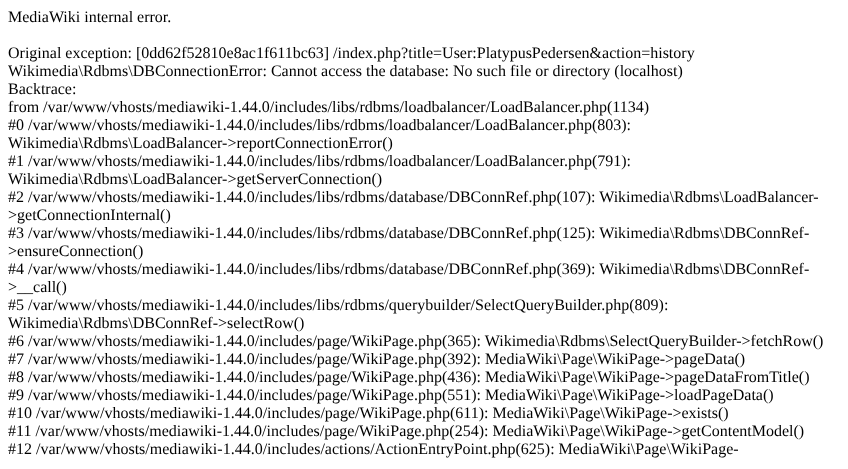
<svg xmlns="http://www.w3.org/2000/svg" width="848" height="469">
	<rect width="100%" height="100%" fill="#FFFFFF" />
	<g font-family="Liberation Serif" font-size="16" fill="#000000">
		<text x="8" y="22">MediaWiki internal error.</text>
		<text x="8" y="58">Original exception: [0dd62f52810e8ac1f611bc63] /index.php?title=User:PlatypusPedersen&amp;action=history</text>
		<text x="8" y="76">Wikimedia\Rdbms\DBConnectionError: Cannot access the database: No such file or directory (localhost)</text>
		<text x="8" y="94">Backtrace:</text>
		<text x="8" y="112">from /var/www/vhosts/mediawiki-1.44.0/includes/libs/rdbms/loadbalancer/LoadBalancer.php(1134)</text>
		<text x="8" y="130">#0 /var/www/vhosts/mediawiki-1.44.0/includes/libs/rdbms/loadbalancer/LoadBalancer.php(803):</text>
		<text x="8" y="148">Wikimedia\Rdbms\LoadBalancer-&gt;reportConnectionError()</text>
		<text x="8" y="166">#1 /var/www/vhosts/mediawiki-1.44.0/includes/libs/rdbms/loadbalancer/LoadBalancer.php(791):</text>
		<text x="8" y="184">Wikimedia\Rdbms\LoadBalancer-&gt;getServerConnection()</text>
		<text x="8" y="202">#2 /var/www/vhosts/mediawiki-1.44.0/includes/libs/rdbms/database/DBConnRef.php(107): Wikimedia\Rdbms\LoadBalancer-</text>
		<text x="8" y="220">&gt;getConnectionInternal()</text>
		<text x="8" y="238">#3 /var/www/vhosts/mediawiki-1.44.0/includes/libs/rdbms/database/DBConnRef.php(125): Wikimedia\Rdbms\DBConnRef-</text>
		<text x="8" y="256">&gt;ensureConnection()</text>
		<text x="8" y="274">#4 /var/www/vhosts/mediawiki-1.44.0/includes/libs/rdbms/database/DBConnRef.php(369): Wikimedia\Rdbms\DBConnRef-</text>
		<text x="8" y="292">&gt;__call()</text>
		<text x="8" y="310">#5 /var/www/vhosts/mediawiki-1.44.0/includes/libs/rdbms/querybuilder/SelectQueryBuilder.php(809):</text>
		<text x="8" y="328">Wikimedia\Rdbms\DBConnRef-&gt;selectRow()</text>
		<text x="8" y="346">#6 /var/www/vhosts/mediawiki-1.44.0/includes/page/WikiPage.php(365): Wikimedia\Rdbms\SelectQueryBuilder-&gt;fetchRow()</text>
		<text x="8" y="364">#7 /var/www/vhosts/mediawiki-1.44.0/includes/page/WikiPage.php(392): MediaWiki\Page\WikiPage-&gt;pageData()</text>
		<text x="8" y="382">#8 /var/www/vhosts/mediawiki-1.44.0/includes/page/WikiPage.php(436): MediaWiki\Page\WikiPage-&gt;pageDataFromTitle()</text>
		<text x="8" y="400">#9 /var/www/vhosts/mediawiki-1.44.0/includes/page/WikiPage.php(551): MediaWiki\Page\WikiPage-&gt;loadPageData()</text>
		<text x="8" y="418">#10 /var/www/vhosts/mediawiki-1.44.0/includes/page/WikiPage.php(611): MediaWiki\Page\WikiPage-&gt;exists()</text>
		<text x="8" y="436">#11 /var/www/vhosts/mediawiki-1.44.0/includes/page/WikiPage.php(254): MediaWiki\Page\WikiPage-&gt;getContentModel()</text>
		<text x="8" y="454">#12 /var/www/vhosts/mediawiki-1.44.0/includes/actions/ActionEntryPoint.php(625): MediaWiki\Page\WikiPage-</text>
	</g>
</svg>
